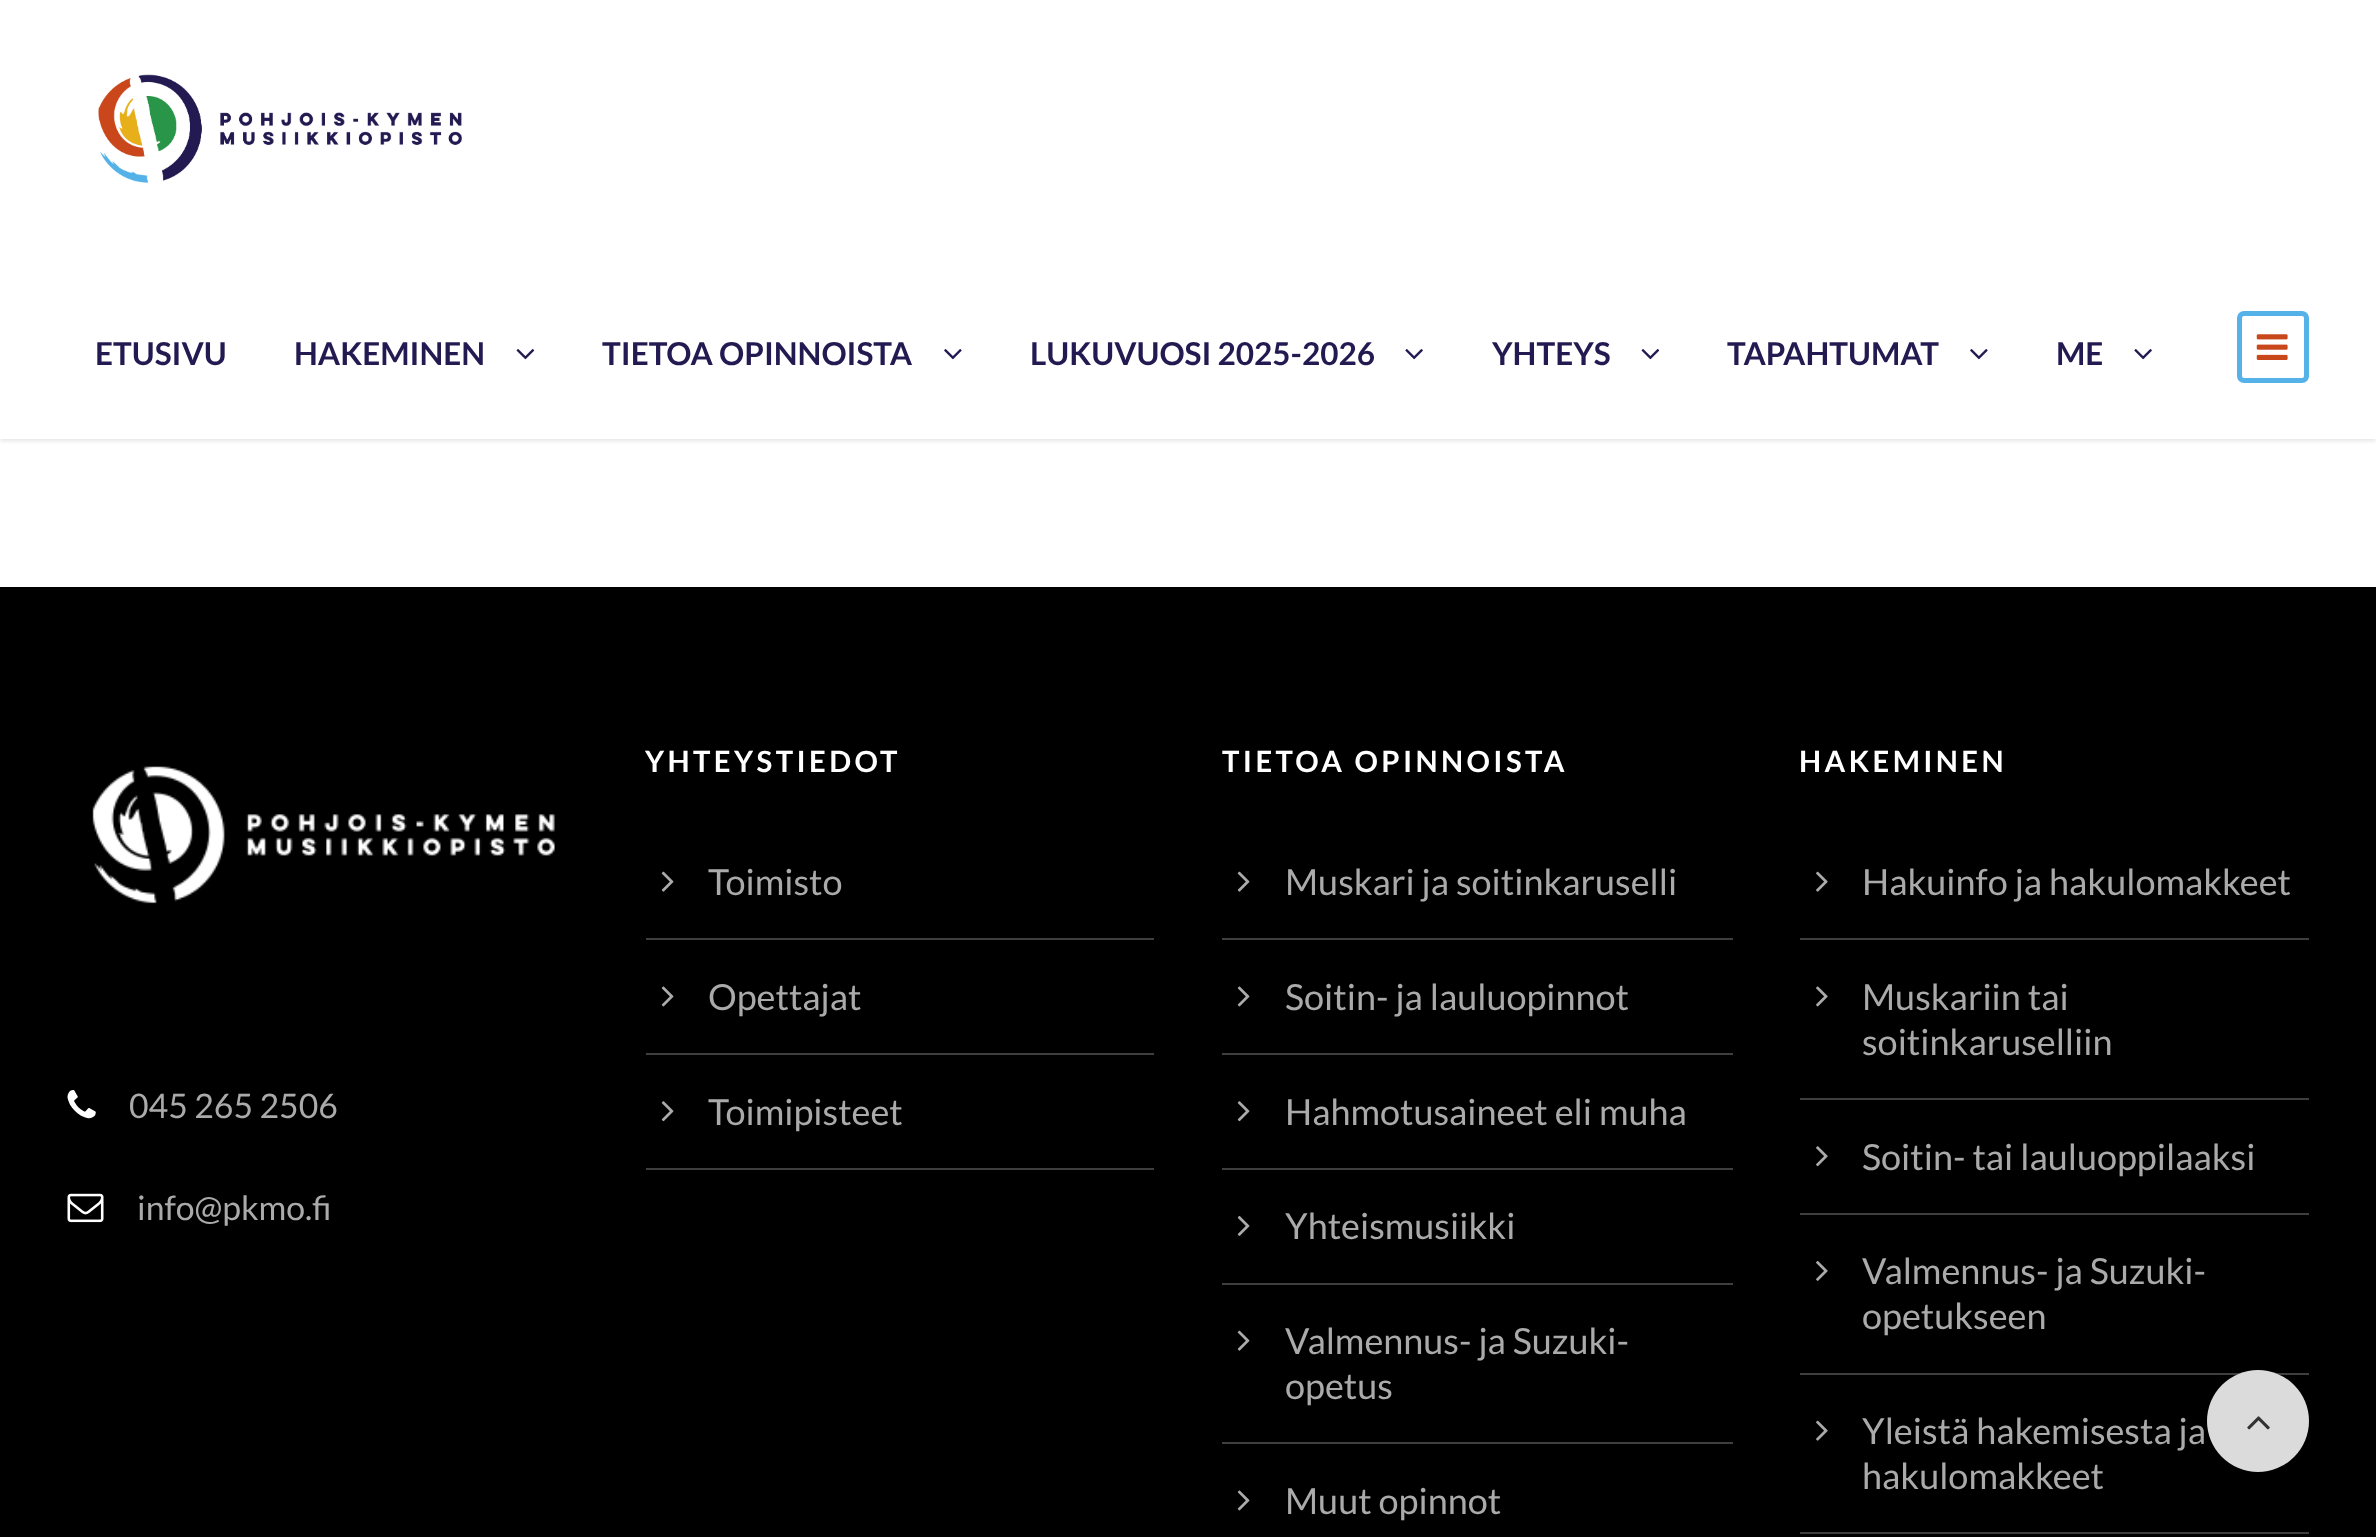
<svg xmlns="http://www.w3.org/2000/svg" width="2376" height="1537">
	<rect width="100%" height="100%" fill="#FFFFFF" />
	<rect x="0" y="2" width="2376" height="439" fill="#000000" fill-opacity="0.1" filter="blur(2px)" />
	<rect x="0" y="0" width="2376" height="439" fill="#FFFFFF" />
	<image x="98" y="74" width="365" height="109" href="assets/img1.png" />
	<g font-family="Lato" font-size="31.5" font-weight="700" fill="#221A51">
		<text x="95" y="365">ETUSIVU</text>
		<text x="294" y="365">HAKEMINEN</text>
	</g>
	<image x="516" y="349" width="19" height="11" href="assets/img2.png" />
	<text x="602" y="365" font-family="Lato" font-size="31.5" font-weight="700" fill="#221A51">TIETOA OPINNOISTA</text>
	<image x="944" y="349" width="18" height="11" href="assets/img3.png" />
	<text x="1030" y="365" font-family="Lato" font-size="31.5" font-weight="700" fill="#221A51">LUKUVUOSI 2025-2026</text>
	<image x="1405" y="349" width="18" height="11" href="assets/img4.png" />
	<text x="1492" y="365" font-family="Lato" font-size="31.5" font-weight="700" fill="#221A51">YHTEYS</text>
	<image x="1641" y="349" width="19" height="11" href="assets/img2.png" />
	<text x="1727" y="365" font-family="Lato" font-size="31.5" font-weight="700" fill="#221A51">TAPAHTUMAT</text>
	<image x="1970" y="349" width="18" height="11" href="assets/img3.png" />
	<text x="2056" y="365" font-family="Lato" font-size="31.5" font-weight="700" fill="#221A51">ME</text>
	<image x="2134" y="349" width="18" height="11" href="assets/img4.png" />
	<rect x="2239.5" y="313.5" width="67" height="67" rx="4.5" fill="none" stroke="#54B2E9" stroke-width="5" />
	<image x="2256" y="334" width="32" height="26" href="assets/img5.png" />
	<rect x="0" y="587" width="2376" height="950" fill="#000000" />
	<image x="92" y="766" width="463" height="138" href="assets/img6.png" />
	<image x="67" y="1090" width="29" height="29" href="assets/img7.png" />
	<text x="129" y="1118" font-family="Lato" font-size="33.75" fill="#AAAAAA">045 265 2506</text>
	<image x="67" y="1193" width="37" height="30" href="assets/img8.png" />
	<text x="137" y="1220" font-family="Lato" font-size="33.75" fill="#AAAAAA">info@pkmo.fi</text>
	<text x="645" y="772" font-family="Lato" font-size="29.25" font-weight="700" letter-spacing="3.4" fill="#FFFFFF">YHTEYSTIEDOT</text>
	<rect x="646" y="938" width="508" height="2" fill="#3F3F3F" />
	<image x="661" y="871" width="13" height="21" href="assets/img9.png" />
	<text x="708" y="895" font-family="Lato" font-size="36" fill="#AAAAAA">Toimisto</text>
	<rect x="646" y="1053" width="508" height="2" fill="#3F3F3F" />
	<image x="661" y="986" width="13" height="21" href="assets/img10.png" />
	<text x="708" y="1010" font-family="Lato" font-size="36" fill="#AAAAAA">Opettajat</text>
	<rect x="646" y="1168" width="508" height="2" fill="#3F3F3F" />
	<image x="661" y="1101" width="13" height="21" href="assets/img11.png" />
	<text x="708" y="1125" font-family="Lato" font-size="36" fill="#AAAAAA">Toimipisteet</text>
	<text x="1222" y="772" font-family="Lato" font-size="29.25" font-weight="700" letter-spacing="3.4" fill="#FFFFFF">TIETOA OPINNOISTA</text>
	<rect x="1222" y="938" width="511" height="2" fill="#3F3F3F" />
	<image x="1237" y="871" width="13" height="21" href="assets/img9.png" />
	<text x="1285" y="895" font-family="Lato" font-size="36" fill="#AAAAAA">Muskari ja soitinkaruselli</text>
	<rect x="1222" y="1053" width="511" height="2" fill="#3F3F3F" />
	<image x="1237" y="986" width="13" height="21" href="assets/img10.png" />
	<text x="1285" y="1010" font-family="Lato" font-size="36" fill="#AAAAAA">Soitin- ja lauluopinnot</text>
	<rect x="1222" y="1168" width="511" height="2" fill="#3F3F3F" />
	<image x="1237" y="1101" width="13" height="21" href="assets/img11.png" />
	<text x="1285" y="1125" font-family="Lato" font-size="36" fill="#AAAAAA">Hahmotusaineet eli muha</text>
	<rect x="1222" y="1283" width="511" height="2" fill="#3F3F3F" />
	<image x="1237" y="1216" width="13" height="20" href="assets/img12.png" />
	<text x="1285" y="1239" font-family="Lato" font-size="36" fill="#AAAAAA">Yhteismusiikki</text>
	<rect x="1222" y="1442" width="511" height="2" fill="#3F3F3F" />
	<image x="1237" y="1330" width="13" height="21" href="assets/img9.png" />
	<g font-family="Lato" font-size="36" fill="#AAAAAA">
		<text x="1285" y="1354">Valmennus- ja Suzuki-</text>
		<text x="1285" y="1399">opetus</text>
	</g>
	<image x="1237" y="1490" width="13" height="21" href="assets/img10.png" />
	<text x="1285" y="1514" font-family="Lato" font-size="36" fill="#AAAAAA">Muut opinnot</text>
	<text x="1799" y="772" font-family="Lato" font-size="29.25" font-weight="700" letter-spacing="3.4" fill="#FFFFFF">HAKEMINEN</text>
	<rect x="1800" y="938" width="509" height="2" fill="#3F3F3F" />
	<image x="1816" y="871" width="12" height="21" href="assets/img13.png" />
	<text x="1862" y="895" font-family="Lato" font-size="36" fill="#AAAAAA">Hakuinfo ja hakulomakkeet</text>
	<rect x="1800" y="1098" width="509" height="2" fill="#3F3F3F" />
	<image x="1816" y="986" width="12" height="21" href="assets/img14.png" />
	<g font-family="Lato" font-size="36" fill="#AAAAAA">
		<text x="1862" y="1010">Muskariin tai</text>
		<text x="1862" y="1055">soitinkaruselliin</text>
	</g>
	<rect x="1800" y="1213" width="509" height="2" fill="#3F3F3F" />
	<image x="1816" y="1146" width="12" height="21" href="assets/img15.png" />
	<text x="1862" y="1170" font-family="Lato" font-size="36" fill="#AAAAAA">Soitin- tai lauluoppilaaksi</text>
	<rect x="1800" y="1373" width="509" height="2" fill="#3F3F3F" />
	<image x="1816" y="1261" width="12" height="20" href="assets/img16.png" />
	<g font-family="Lato" font-size="36" fill="#AAAAAA">
		<text x="1862" y="1284">Valmennus- ja Suzuki-</text>
		<text x="1862" y="1329">opetukseen</text>
	</g>
	<rect x="1800" y="1532" width="509" height="2" fill="#3F3F3F" />
	<image x="1816" y="1420" width="12" height="21" href="assets/img13.png" />
	<g font-family="Lato" font-size="36" fill="#AAAAAA">
		<text x="1862" y="1444">Yleistä hakemisesta ja</text>
		<text x="1862" y="1489">hakulomakkeet</text>
	</g>
	<circle cx="2258" cy="1421" r="51" fill="#DBDBDB" />
	<image x="2247" y="1416" width="23" height="14" href="assets/img17.png" />
</svg>
